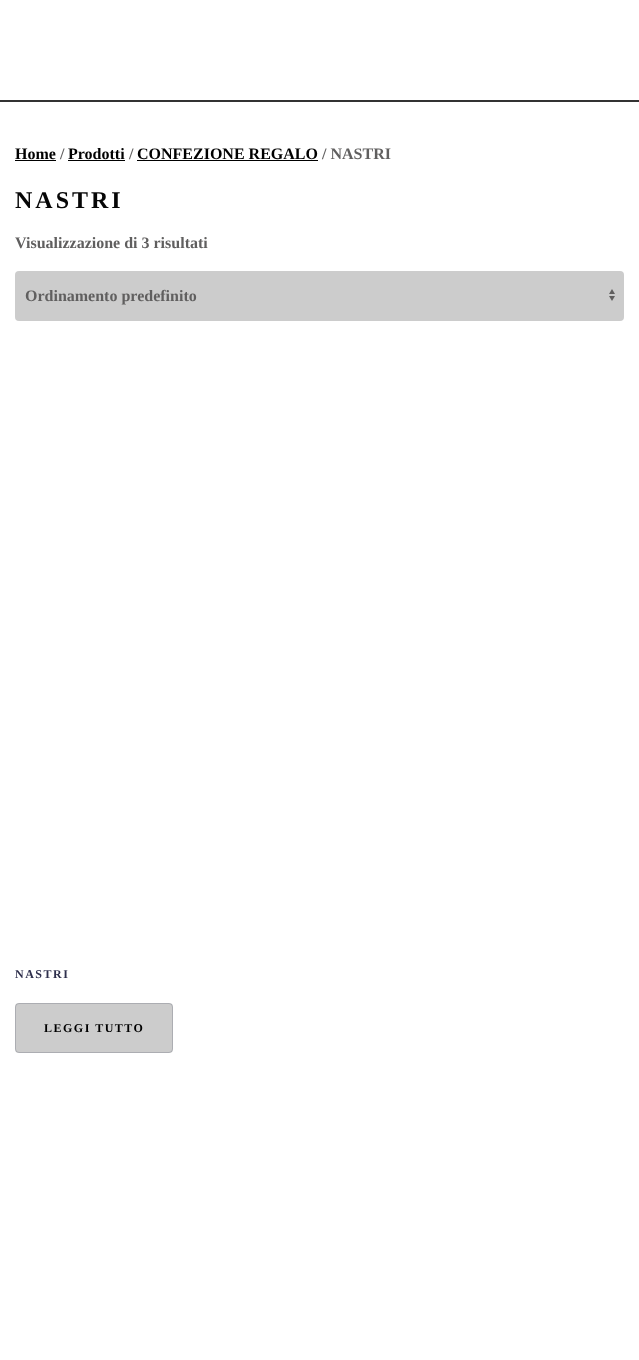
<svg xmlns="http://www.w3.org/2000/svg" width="639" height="1360">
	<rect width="100%" height="100%" fill="#FFFFFF" />
	<rect x="0" y="100" width="639" height="2" fill="#333333" />
	<text x="15" y="159" font-family="Liberation Serif" font-size="16" font-weight="700" fill="#000000">Home</text>
	<rect x="15" y="160" width="41" height="1" fill="#000000" />
	<text x="60" y="159" font-family="Liberation Serif" font-size="16" font-weight="700" fill="#605F5F">/</text>
	<text x="68" y="159" font-family="Liberation Serif" font-size="16" font-weight="700" fill="#000000">Prodotti</text>
	<rect x="68" y="160" width="57" height="1" fill="#000000" />
	<text x="129" y="159" font-family="Liberation Serif" font-size="16" font-weight="700" fill="#605F5F">/</text>
	<text x="137" y="159" font-family="Liberation Serif" font-size="16" font-weight="700" fill="#000000">CONFEZIONE REGALO</text>
	<rect x="137" y="160" width="181" height="1" fill="#000000" />
	<text x="322" y="159" font-family="Liberation Serif" font-size="16" font-weight="700" fill="#605F5F">/ NASTRI</text>
	<text x="15" y="208" font-family="Liberation Serif" font-size="24" font-weight="700" letter-spacing="3" fill="#060606">NASTRI</text>
	<text x="15" y="248" font-family="Liberation Serif" font-size="16" font-weight="700" fill="#605F5F">Visualizzazione di 3 risultati</text>
	<rect x="15" y="271" width="609" height="50" rx="4" fill="#CCCCCC" />
	<image x="609" y="289" width="6" height="12" href="assets/img1.png" />
	<text x="25" y="301" font-family="Liberation Serif" font-size="16" font-weight="700" fill="#605F5F">Ordinamento predefinito</text>
	<text x="15" y="978" font-family="Liberation Serif" font-size="12" font-weight="700" letter-spacing="1.5" fill="#2F304D">NASTRI</text>
	<rect x="15" y="1003" width="158" height="50" rx="4" fill="#CCCCCC" />
	<rect x="15.5" y="1003.5" width="157" height="49" rx="3.5" fill="none" stroke="#2F304D" stroke-opacity="0.2" />
	<text x="44" y="1032" font-family="Liberation Serif" font-size="12" font-weight="700" letter-spacing="1.5" fill="#000000">LEGGI TUTTO</text>
</svg>
